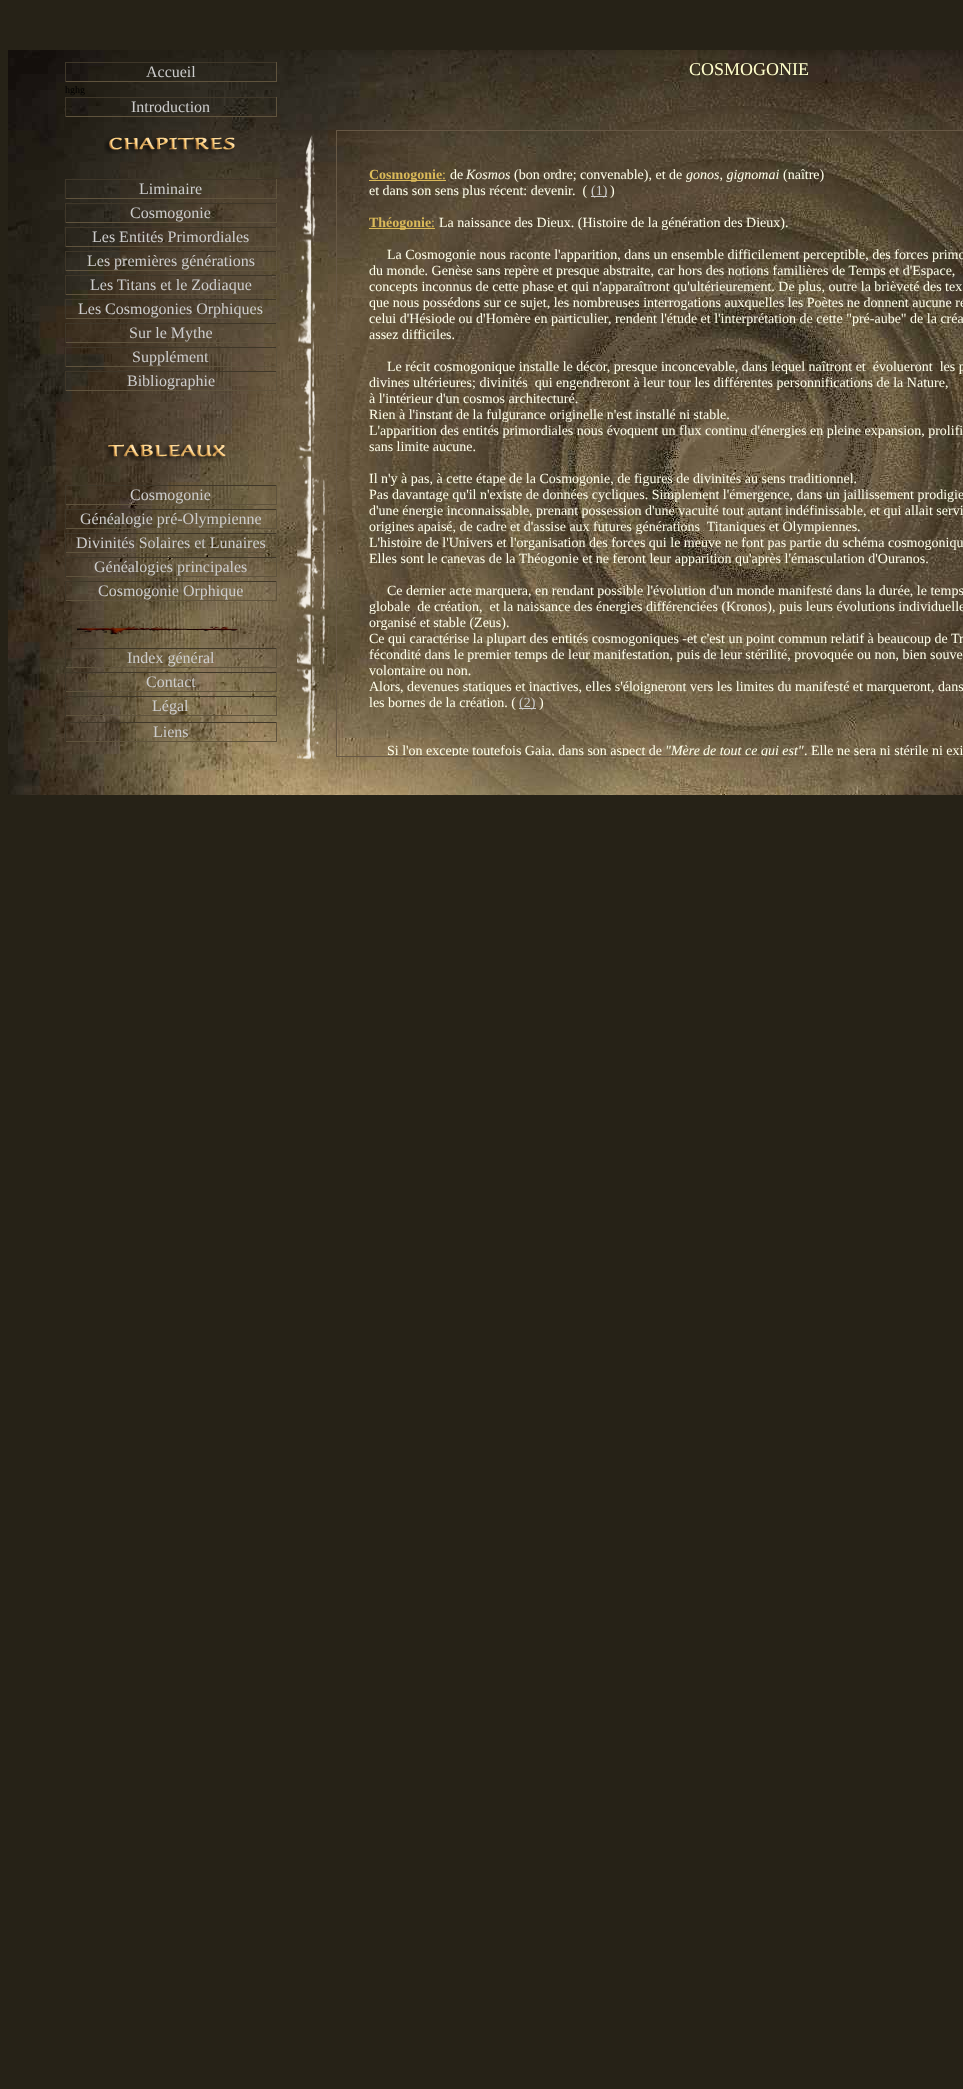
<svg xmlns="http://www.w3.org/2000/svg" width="963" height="2089">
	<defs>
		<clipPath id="clip1"><rect x="337" y="131" width="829" height="625" /></clipPath>
	</defs>
	<rect width="100%" height="100%" fill="#262217" />
	<image x="8" y="50" width="955" height="745" href="assets/img1.png" />
	<rect x="65" y="62" width="212" height="1" fill="#3F3729" />
	<rect x="276" y="62" width="1" height="20" fill="#5F533D" />
	<rect x="65" y="81" width="212" height="1" fill="#5F533D" />
	<rect x="65" y="62" width="1" height="20" fill="#3F3729" />
	<text x="146" y="77" font-family="Liberation Serif" font-size="16" fill="#CCCCCC">Accueil</text>
	<text x="65" y="93" font-family="Liberation Serif" font-size="10" fill="#000000">hghg</text>
	<rect x="65" y="97" width="212" height="1" fill="#3F3729" />
	<rect x="276" y="97" width="1" height="20" fill="#5F533D" />
	<rect x="65" y="116" width="212" height="1" fill="#5F533D" />
	<rect x="65" y="97" width="1" height="20" fill="#3F3729" />
	<text x="131" y="112" font-family="Liberation Serif" font-size="16" fill="#CCCCCC">Introduction</text>
	<text x="689" y="75" font-family="Liberation Serif" font-size="18" fill="#FFFFCC">COSMOGONIE</text>
	<image x="104" y="137" width="131" height="17" href="assets/img2.png" />
	<rect x="65" y="179" width="212" height="1" fill="#3F3729" />
	<rect x="276" y="179" width="1" height="20" fill="#5F533D" />
	<rect x="65" y="198" width="212" height="1" fill="#5F533D" />
	<rect x="65" y="179" width="1" height="20" fill="#3F3729" />
	<text x="139" y="194" font-family="Liberation Serif" font-size="16" fill="#CCCCCC">Liminaire</text>
	<rect x="65" y="203" width="212" height="1" fill="#3F3729" />
	<rect x="276" y="203" width="1" height="20" fill="#5F533D" />
	<rect x="65" y="222" width="212" height="1" fill="#5F533D" />
	<rect x="65" y="203" width="1" height="20" fill="#3F3729" />
	<text x="130" y="218" font-family="Liberation Serif" font-size="16" fill="#CCCCCC">Cosmogonie</text>
	<rect x="65" y="227" width="212" height="1" fill="#3F3729" />
	<rect x="276" y="227" width="1" height="20" fill="#5F533D" />
	<rect x="65" y="246" width="212" height="1" fill="#5F533D" />
	<rect x="65" y="227" width="1" height="20" fill="#3F3729" />
	<text x="92" y="242" font-family="Liberation Serif" font-size="16" fill="#CCCCCC">Les Entités Primordiales</text>
	<rect x="65" y="251" width="212" height="1" fill="#3F3729" />
	<rect x="276" y="251" width="1" height="20" fill="#5F533D" />
	<rect x="65" y="270" width="212" height="1" fill="#5F533D" />
	<rect x="65" y="251" width="1" height="20" fill="#3F3729" />
	<text x="87" y="266" font-family="Liberation Serif" font-size="16" fill="#CCCCCC">Les premières générations</text>
	<rect x="65" y="275" width="212" height="1" fill="#3F3729" />
	<rect x="276" y="275" width="1" height="20" fill="#5F533D" />
	<rect x="65" y="294" width="212" height="1" fill="#5F533D" />
	<rect x="65" y="275" width="1" height="20" fill="#3F3729" />
	<text x="90" y="290" font-family="Liberation Serif" font-size="16" fill="#CCCCCC">Les Titans et le Zodiaque</text>
	<rect x="65" y="299" width="212" height="1" fill="#3F3729" />
	<rect x="276" y="299" width="1" height="20" fill="#5F533D" />
	<rect x="65" y="318" width="212" height="1" fill="#5F533D" />
	<rect x="65" y="299" width="1" height="20" fill="#3F3729" />
	<text x="78" y="314" font-family="Liberation Serif" font-size="16" fill="#CCCCCC">Les Cosmogonies Orphiques</text>
	<rect x="65" y="323" width="212" height="1" fill="#3F3729" />
	<rect x="276" y="323" width="1" height="20" fill="#5F533D" />
	<rect x="65" y="342" width="212" height="1" fill="#5F533D" />
	<rect x="65" y="323" width="1" height="20" fill="#3F3729" />
	<text x="129" y="338" font-family="Liberation Serif" font-size="16" fill="#CCCCCC">Sur le Mythe</text>
	<rect x="65" y="347" width="212" height="1" fill="#3F3729" />
	<rect x="276" y="347" width="1" height="20" fill="#5F533D" />
	<rect x="65" y="366" width="212" height="1" fill="#5F533D" />
	<rect x="65" y="347" width="1" height="20" fill="#3F3729" />
	<text x="132" y="362" font-family="Liberation Serif" font-size="16" fill="#CCCCCC">Supplément</text>
	<rect x="65" y="371" width="212" height="1" fill="#3F3729" />
	<rect x="276" y="371" width="1" height="20" fill="#5F533D" />
	<rect x="65" y="390" width="212" height="1" fill="#5F533D" />
	<rect x="65" y="371" width="1" height="20" fill="#3F3729" />
	<text x="127" y="386" font-family="Liberation Serif" font-size="16" fill="#CCCCCC">Bibliographie</text>
	<image x="104" y="444" width="122" height="18" href="assets/img3.png" />
	<rect x="65" y="485" width="212" height="1" fill="#3F3729" />
	<rect x="276" y="485" width="1" height="20" fill="#5F533D" />
	<rect x="65" y="504" width="212" height="1" fill="#5F533D" />
	<rect x="65" y="485" width="1" height="20" fill="#3F3729" />
	<text x="130" y="500" font-family="Liberation Serif" font-size="16" fill="#CCCCCC">Cosmogonie</text>
	<rect x="65" y="509" width="212" height="1" fill="#3F3729" />
	<rect x="276" y="509" width="1" height="20" fill="#5F533D" />
	<rect x="65" y="528" width="212" height="1" fill="#5F533D" />
	<rect x="65" y="509" width="1" height="20" fill="#3F3729" />
	<text x="80" y="524" font-family="Liberation Serif" font-size="16" fill="#CCCCCC">Généalogie pré-Olympienne</text>
	<rect x="65" y="533" width="212" height="1" fill="#3F3729" />
	<rect x="276" y="533" width="1" height="20" fill="#5F533D" />
	<rect x="65" y="552" width="212" height="1" fill="#5F533D" />
	<rect x="65" y="533" width="1" height="20" fill="#3F3729" />
	<text x="76" y="548" font-family="Liberation Serif" font-size="16" fill="#CCCCCC">Divinités Solaires et Lunaires</text>
	<rect x="65" y="557" width="212" height="1" fill="#3F3729" />
	<rect x="276" y="557" width="1" height="20" fill="#5F533D" />
	<rect x="65" y="576" width="212" height="1" fill="#5F533D" />
	<rect x="65" y="557" width="1" height="20" fill="#3F3729" />
	<text x="94" y="572" font-family="Liberation Serif" font-size="16" fill="#CCCCCC">Généalogies principales</text>
	<rect x="65" y="581" width="212" height="1" fill="#3F3729" />
	<rect x="276" y="581" width="1" height="20" fill="#5F533D" />
	<rect x="65" y="600" width="212" height="1" fill="#5F533D" />
	<rect x="65" y="581" width="1" height="20" fill="#3F3729" />
	<text x="98" y="596" font-family="Liberation Serif" font-size="16" fill="#CCCCCC">Cosmogonie Orphique</text>
	<image x="77" y="626" width="161" height="11" href="assets/img4.png" />
	<rect x="65" y="648" width="212" height="1" fill="#3F3729" />
	<rect x="276" y="648" width="1" height="20" fill="#5F533D" />
	<rect x="65" y="667" width="212" height="1" fill="#5F533D" />
	<rect x="65" y="648" width="1" height="20" fill="#3F3729" />
	<text x="127" y="663" font-family="Liberation Serif" font-size="16" fill="#CCCCCC">Index général</text>
	<rect x="65" y="672" width="212" height="1" fill="#3F3729" />
	<rect x="276" y="672" width="1" height="20" fill="#5F533D" />
	<rect x="65" y="691" width="212" height="1" fill="#5F533D" />
	<rect x="65" y="672" width="1" height="20" fill="#3F3729" />
	<text x="146" y="687" font-family="Liberation Serif" font-size="16" fill="#CCCCCC">Contact</text>
	<rect x="65" y="696" width="212" height="1" fill="#3F3729" />
	<rect x="276" y="696" width="1" height="20" fill="#5F533D" />
	<rect x="65" y="715" width="212" height="1" fill="#5F533D" />
	<rect x="65" y="696" width="1" height="20" fill="#3F3729" />
	<text x="152" y="711" font-family="Liberation Serif" font-size="16" fill="#CCCCCC">Légal</text>
	<rect x="65" y="722" width="212" height="1" fill="#3F3729" />
	<rect x="276" y="722" width="1" height="20" fill="#5F533D" />
	<rect x="65" y="741" width="212" height="1" fill="#5F533D" />
	<rect x="65" y="722" width="1" height="20" fill="#3F3729" />
	<text x="153" y="737" font-family="Liberation Serif" font-size="16" fill="#CCCCCC">Liens</text>
	<image x="297" y="134" width="32" height="626" href="assets/img5.png" />
	<rect x="336.5" y="130.5" width="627" height="626" fill="none" stroke="#675845" />
	<rect x="369" y="180" width="77" height="1" fill="#DBBA59" />
	<text x="369" y="179" font-family="Liberation Serif" font-size="14" font-weight="700" fill="#DBBA59">Cosmogonie</text>
	<text x="442" y="179" font-family="Liberation Serif" font-size="14" fill="#DBBA59">:</text>
	<text x="450" y="179" font-family="Liberation Serif" font-size="14" fill="#FFFFEA">de</text>
	<text x="466" y="179" font-family="Liberation Serif" font-size="14" font-style="italic" fill="#FFFFEA">Kosmos</text>
	<text x="514" y="179" font-family="Liberation Serif" font-size="14" fill="#FFFFEA">(bon ordre; convenable), et de</text>
	<text x="686" y="179" font-family="Liberation Serif" font-size="14" font-style="italic" fill="#FFFFEA">gonos, gignomai</text>
	<g font-family="Liberation Serif" font-size="14" fill="#FFFFEA">
		<text x="783" y="179">(naître)</text>
		<text x="369" y="195" xml:space="preserve">et dans son sens plus récent: devenir.  (</text>
	</g>
	<rect x="591" y="196" width="16" height="1" fill="#CCCCCC" />
	<text x="591" y="195" font-family="Liberation Serif" font-size="14" fill="#CCCCCC">(1)</text>
	<text x="610" y="195" font-family="Liberation Serif" font-size="14" fill="#FFFFEA">)</text>
	<rect x="369" y="228" width="66" height="1" fill="#DBBA59" />
	<text x="369" y="227" font-family="Liberation Serif" font-size="14" font-weight="700" fill="#DBBA59">Théogonie</text>
	<text x="431" y="227" font-family="Liberation Serif" font-size="14" fill="#DBBA59">:</text>
	<g font-family="Liberation Serif" font-size="14" fill="#FFFFEA">
		<text x="439" y="227">La naissance des Dieux. (Histoire de la génération des Dieux).</text>
		<text x="387" y="259">La Cosmogonie nous raconte l'apparition, dans un ensemble difficilement perceptible, des forces primo</text>
		<text x="369" y="275">du monde. Genèse sans repère et presque abstraite, car hors des notions familières de Temps et d'Espace,</text>
		<text x="369" y="291">concepts inconnus de cette phase et qui n'apparaîtront qu'ultérieurement. De plus, outre la brièveté des tex</text>
		<text x="369" y="307">que nous possédons sur ce sujet, les nombreuses interrogations auxquelles les Poètes ne donnent aucune ré</text>
		<text x="369" y="323">celui d'Hésiode ou d'Homère en particulier, rendent l'étude et l'interprétation de cette "pré-aube" de la créa</text>
		<text x="369" y="339">assez difficiles.</text>
		<text x="387" y="371" xml:space="preserve">Le récit cosmogonique installe le décor, presque inconcevable, dans lequel naîtront et  évolueront  les p</text>
		<text x="369" y="387" xml:space="preserve">divines ultérieures; divinités  qui engendreront à leur tour les différentes personnifications de la Nature,</text>
		<text x="369" y="403">à l'intérieur d'un cosmos architecturé.</text>
		<text x="369" y="419">Rien à l'instant de la fulgurance originelle n'est installé ni stable.</text>
		<text x="369" y="435">L'apparition des entités primordiales nous évoquent un flux continu d'énergies en pleine expansion, prolifi</text>
		<text x="369" y="451">sans limite aucune.</text>
		<text x="369" y="483">Il n'y à pas, à cette étape de la Cosmogonie, de figures de divinités au sens traditionnel.</text>
		<text x="369" y="499">Pas davantage qu'il n'existe de données cycliques. Simplement l'émergence, dans un jaillissement prodigie</text>
		<text x="369" y="515">d'une énergie inconnaissable, prenant possession d'une vacuité tout autant indéfinissable, et qui allait servi</text>
		<text x="369" y="531" xml:space="preserve">origines apaisé, de cadre et d'assise aux futures générations  Titaniques et Olympiennes.</text>
		<text x="369" y="547">L'histoire de l'Univers et l'organisation des forces qui le meuve ne font pas partie du schéma cosmogoniqu</text>
		<text x="369" y="563">Elles sont le canevas de la Théogonie et ne feront leur apparition qu'après l'émasculation d'Ouranos.</text>
		<text x="387" y="595">Ce dernier acte marquera, en rendant possible l'évolution d'un monde manifesté dans la durée, le temps</text>
		<text x="369" y="611" xml:space="preserve">globale  de création,  et la naissance des énergies différenciées (Kronos), puis leurs évolutions individuelle</text>
		<text x="369" y="627">organisé et stable (Zeus).</text>
		<text x="369" y="643">Ce qui caractérise la plupart des entités cosmogoniques -et c'est un point commun relatif à beaucoup de Tr</text>
		<text x="369" y="659">fécondité dans le premier temps de leur manifestation, puis de leur stérilité, provoquée ou non, bien souve</text>
		<text x="369" y="675">volontaire ou non.</text>
		<text x="369" y="691">Alors, devenues statiques et inactives, elles s'éloigneront vers les limites du manifesté et marqueront, dans</text>
		<text x="369" y="707">les bornes de la création. (</text>
	</g>
	<rect x="519" y="708" width="17" height="1" fill="#CCCCCC" />
	<text x="519" y="707" font-family="Liberation Serif" font-size="14" fill="#CCCCCC">(2)</text>
	<text x="539" y="707" font-family="Liberation Serif" font-size="14" fill="#FFFFEA">)</text>
	<g clip-path="url(#clip1)">
		<text x="387" y="755" font-family="Liberation Serif" font-size="14" fill="#FFFFEA">Si l'on excepte toutefois Gaia, dans son aspect de</text>
	</g>
	<text x="665" y="755" font-family="Liberation Serif" font-size="14" font-style="italic" fill="#FFFFEA">"Mère</text>
	<g clip-path="url(#clip1)">
		<text x="703" y="755" font-family="Liberation Serif" font-size="14" font-style="italic" fill="#FFFFEA">de tout ce qui est"</text>
	</g>
	<text x="804" y="755" font-family="Liberation Serif" font-size="14" fill="#FFFFEA">. Elle ne sera ni stérile ni exi</text>
</svg>
